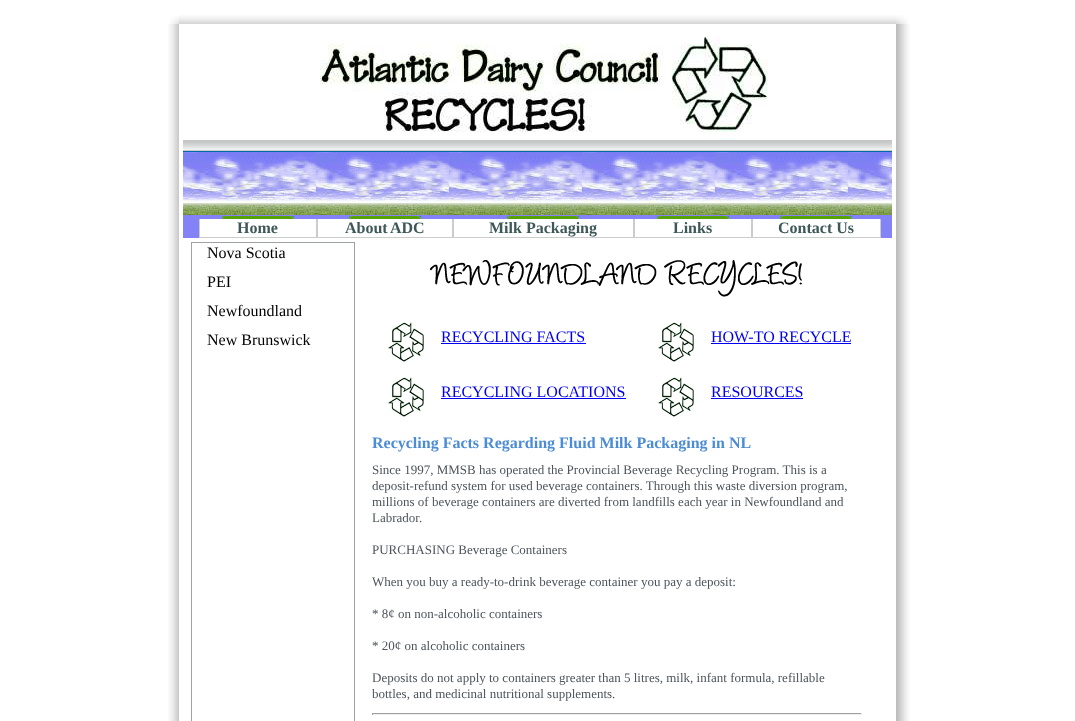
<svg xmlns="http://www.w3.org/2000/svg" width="1075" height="721">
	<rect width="100%" height="100%" fill="#FFFFFF" />
	<image x="170" y="16" width="9" height="8" href="assets/img1.png" />
	<image x="179" y="15" width="717" height="9" href="assets/img2.png" />
	<image x="896" y="15" width="12" height="9" href="assets/img3.png" />
	<image x="168" y="24" width="11" height="697" href="assets/img4.png" />
	<image x="320" y="36" width="448" height="104" href="assets/img5.png" />
	<image x="183" y="140" width="709" height="12" href="assets/img6.png" />
	<image x="183" y="152" width="709" height="63" href="assets/img7.png" />
	<rect x="183" y="215" width="709" height="23" fill="#8482F7" />
	<image x="222" y="216" width="72" height="3" href="assets/img8.png" />
	<image x="349" y="216" width="72" height="3" href="assets/img8.png" />
	<image x="507" y="216" width="72" height="3" href="assets/img8.png" />
	<image x="657" y="216" width="72" height="3" href="assets/img8.png" />
	<image x="780" y="216" width="72" height="3" href="assets/img8.png" />
	<rect x="200" y="219" width="116" height="18" fill="#FFFFFF" />
	<rect x="316" y="219" width="1" height="19" fill="#CCCCCC" />
	<rect x="199" y="237" width="118" height="1" fill="#CCCCCC" />
	<rect x="199" y="219" width="1" height="19" fill="#CCCCCC" />
	<text x="237" y="233" font-family="Liberation Serif" font-size="16" font-weight="700" fill="#3D5857">Home</text>
	<rect x="318" y="219" width="134" height="18" fill="#FFFFFF" />
	<rect x="452" y="219" width="1" height="19" fill="#CCCCCC" />
	<rect x="317" y="237" width="136" height="1" fill="#CCCCCC" />
	<rect x="317" y="219" width="1" height="19" fill="#CCCCCC" />
	<g font-family="Liberation Serif" font-size="16" font-weight="700" fill="#3D5857">
		<text x="345" y="233">About</text>
		<text x="390" y="233">ADC</text>
	</g>
	<rect x="454" y="219" width="179" height="18" fill="#FFFFFF" />
	<rect x="633" y="219" width="1" height="19" fill="#CCCCCC" />
	<rect x="453" y="237" width="181" height="1" fill="#CCCCCC" />
	<rect x="453" y="219" width="1" height="19" fill="#CCCCCC" />
	<text x="489" y="233" font-family="Liberation Serif" font-size="16" font-weight="700" fill="#3D5857">Milk Packaging</text>
	<rect x="635" y="219" width="116" height="18" fill="#FFFFFF" />
	<rect x="751" y="219" width="1" height="19" fill="#CCCCCC" />
	<rect x="634" y="237" width="118" height="1" fill="#CCCCCC" />
	<rect x="634" y="219" width="1" height="19" fill="#CCCCCC" />
	<text x="673" y="233" font-family="Liberation Serif" font-size="16" font-weight="700" fill="#3D5857">Links</text>
	<rect x="753" y="219" width="127" height="18" fill="#FFFFFF" />
	<rect x="880" y="219" width="1" height="19" fill="#CCCCCC" />
	<rect x="752" y="237" width="129" height="1" fill="#CCCCCC" />
	<rect x="752" y="219" width="1" height="19" fill="#CCCCCC" />
	<text x="778" y="233" font-family="Liberation Serif" font-size="16" font-weight="700" fill="#3D5857">Contact Us</text>
	<rect x="191.5" y="242.5" width="163" height="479" fill="none" stroke="#9EA1A6" />
	<g font-family="Liberation Serif" font-size="16" fill="#000000">
		<text x="207" y="258">Nova Scotia</text>
		<text x="207" y="287">PEI</text>
		<text x="207" y="316">Newfoundland</text>
		<text x="207" y="345">New Brunswick</text>
	</g>
	<image x="430" y="260" width="372" height="37" href="assets/img9.png" />
	<image x="388" y="322" width="36" height="40" href="assets/img10.png" />
	<text x="441" y="342" font-family="Liberation Serif" font-size="16" fill="#0000EE">RECYCLING FACTS</text>
	<rect x="441" y="343" width="145" height="1" fill="#0000EE" />
	<image x="658" y="322" width="36" height="40" href="assets/img10.png" />
	<text x="711" y="342" font-family="Liberation Serif" font-size="16" fill="#0000EE">HOW-TO RECYCLE</text>
	<rect x="711" y="343" width="140" height="1" fill="#0000EE" />
	<image x="388" y="377" width="36" height="40" href="assets/img10.png" />
	<text x="441" y="397" font-family="Liberation Serif" font-size="16" fill="#0000EE">RECYCLING LOCATIONS</text>
	<rect x="441" y="398" width="185" height="1" fill="#0000EE" />
	<image x="658" y="377" width="36" height="40" href="assets/img10.png" />
	<text x="711" y="397" font-family="Liberation Serif" font-size="16" fill="#0000EE">RESOURCES</text>
	<rect x="711" y="398" width="92" height="1" fill="#0000EE" />
	<text x="372" y="448" font-family="Liberation Serif" font-size="16" font-weight="700" fill="#4C8CD4">Recycling Facts Regarding Fluid Milk Packaging in NL</text>
	<g font-family="Liberation Serif" font-size="13" fill="#4D545C">
		<text x="372" y="474">Since 1997, MMSB has operated the Provincial Beverage Recycling Program. This is a</text>
		<text x="372" y="490">deposit-refund system for used beverage containers. Through this waste diversion program,</text>
		<text x="372" y="506">millions of beverage containers are diverted from landfills each year in Newfoundland and</text>
		<text x="372" y="522">Labrador.</text>
		<text x="372" y="554">PURCHASING Beverage Containers</text>
		<text x="372" y="586">When you buy a ready-to-drink beverage container you pay a deposit:</text>
		<text x="372" y="618">* 8¢ on non-alcoholic containers</text>
		<text x="372" y="650">* 20¢ on alcoholic containers</text>
		<text x="372" y="682">Deposits do not apply to containers greater than 5 litres, milk, infant formula, refillable</text>
		<text x="372" y="698">bottles, and medicinal nutritional supplements.</text>
	</g>
	<rect x="372" y="713" width="490" height="1" fill="#9F9F9F" />
	<rect x="861" y="713" width="1" height="2" fill="#EEEEEE" />
	<rect x="372" y="714" width="490" height="1" fill="#EEEEEE" />
	<rect x="372" y="713" width="1" height="2" fill="#9F9F9F" />
	<image x="896" y="24" width="14" height="697" href="assets/img11.png" />
</svg>
